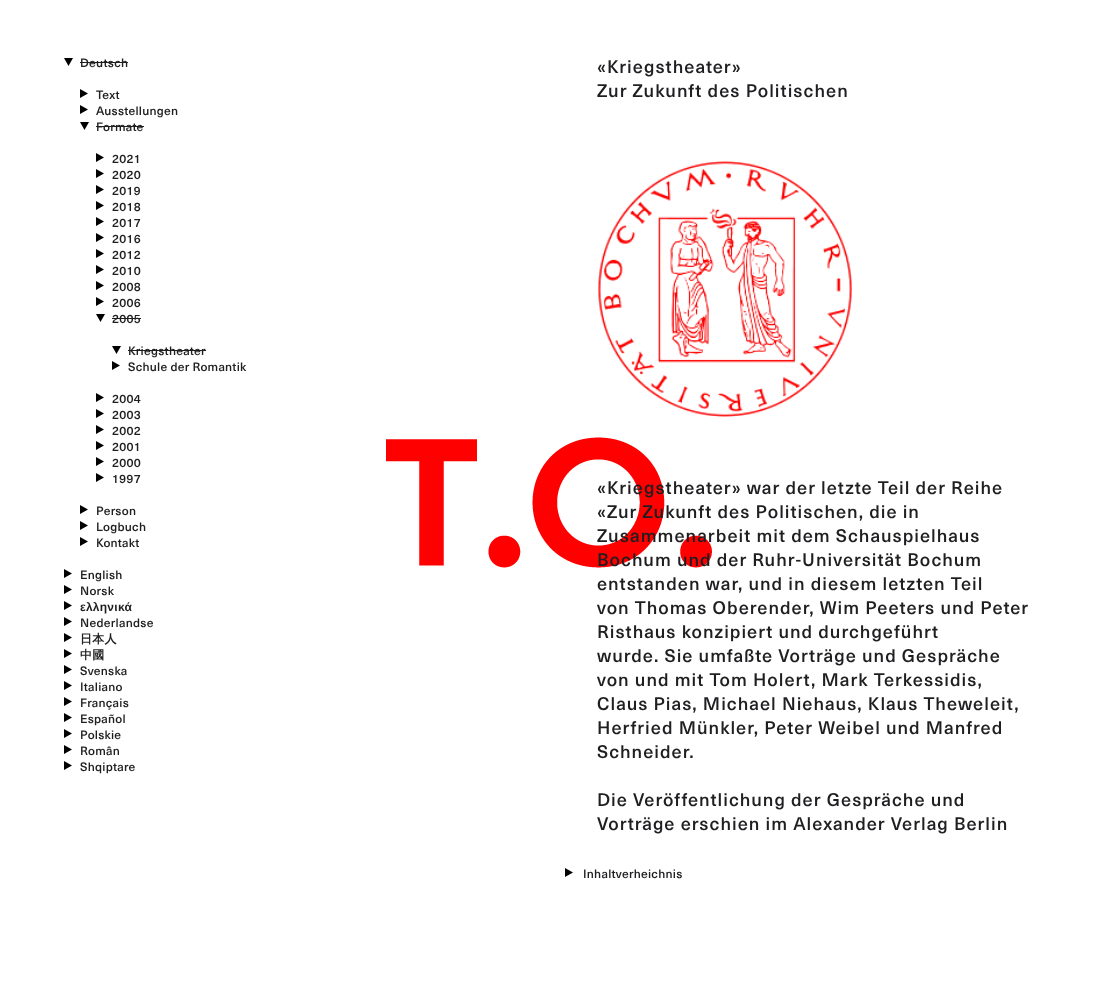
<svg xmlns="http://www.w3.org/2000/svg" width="1098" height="1004">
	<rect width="100%" height="100%" fill="#FFFFFF" />
	<text x="80" y="67" font-family="'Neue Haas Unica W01'" font-size="12" font-weight="500" letter-spacing="0.25" fill="#1F1E21">Deutsch</text>
	<rect x="80" y="62" width="48" height="1" fill="#1F1E21" />
	<path d="M73 58H64L68.5 66M80 89V98L88 93.5M80 105V114L88 109.5" fill="#000000" />
	<g font-family="'Neue Haas Unica W01'" font-size="12" font-weight="500" letter-spacing="0.25" fill="#1F1E21">
		<text x="96" y="99">Text</text>
		<text x="96" y="115">Ausstellungen</text>
		<text x="96" y="131">Formate</text>
	</g>
	<rect x="96" y="126" width="48" height="1" fill="#1F1E21" />
	<path d="M89 122H80L84.5 130M96 153V162L104 157.5M96 169V178L104 173.5" fill="#000000" />
	<g font-family="'Neue Haas Unica W01'" font-size="12" font-weight="500" letter-spacing="0.25" fill="#1F1E21">
		<text x="112" y="163">2021</text>
		<text x="112" y="179">2020</text>
	</g>
	<path d="M96 185V194L104 189.5M96 201V210L104 205.5M96 217V226L104 221.5M96 233V242L104 237.5" fill="#000000" />
	<g font-family="'Neue Haas Unica W01'" font-size="12" font-weight="500" letter-spacing="0.25" fill="#1F1E21">
		<text x="112" y="195">2019</text>
		<text x="112" y="211">2018</text>
		<text x="112" y="227">2017</text>
		<text x="112" y="243">2016</text>
	</g>
	<path d="M96 249V258L104 253.5M96 265V274L104 269.5M96 281V290L104 285.5M96 297V306L104 301.5" fill="#000000" />
	<g font-family="'Neue Haas Unica W01'" font-size="12" font-weight="500" letter-spacing="0.25" fill="#1F1E21">
		<text x="112" y="259">2012</text>
		<text x="112" y="275">2010</text>
		<text x="112" y="291">2008</text>
		<text x="112" y="307">2006</text>
		<text x="112" y="323">2005</text>
	</g>
	<rect x="112" y="318" width="29" height="1" fill="#1F1E21" />
	<path d="M105 314H96L100.5 322M121 346H112L116.5 354M112 361V370L120 365.5" fill="#000000" />
	<text x="128" y="355" font-family="'Neue Haas Unica W01'" font-size="12" font-weight="500" letter-spacing="0.25" fill="#1F1E21">Kriegstheater</text>
	<rect x="128" y="350" width="78" height="1" fill="#1F1E21" />
	<text x="128" y="371" font-family="'Neue Haas Unica W01'" font-size="12" font-weight="500" letter-spacing="0.25" fill="#1F1E21">Schule der Romantik</text>
	<path d="M96 393V402L104 397.5M96 409V418L104 413.5M96 425V434L104 429.5M96 441V450L104 445.5" fill="#000000" />
	<g font-family="'Neue Haas Unica W01'" font-size="12" font-weight="500" letter-spacing="0.25" fill="#1F1E21">
		<text x="112" y="403">2004</text>
		<text x="112" y="419">2003</text>
		<text x="112" y="435">2002</text>
		<text x="112" y="451">2001</text>
		<text x="96" y="515">Person</text>
	</g>
	<path d="M96 457V466L104 461.5M96 473V482L104 477.5M80 505V514L88 509.5" fill="#000000" />
	<g font-family="'Neue Haas Unica W01'" font-size="12" font-weight="500" letter-spacing="0.25" fill="#1F1E21">
		<text x="112" y="467">2000</text>
		<text x="112" y="483">1997</text>
		<text x="80" y="579">English</text>
	</g>
	<path d="M80 521V530L88 525.5M80 537V546L88 541.5M64 569V578L72 573.5" fill="#000000" />
	<g font-family="'Neue Haas Unica W01'" font-size="12" font-weight="500" letter-spacing="0.25" fill="#1F1E21">
		<text x="96" y="531">Logbuch</text>
		<text x="96" y="547">Kontakt</text>
	</g>
	<path d="M64 585V594L72 589.5M64 601V610L72 605.5M64 617V626L72 621.5M64 633V642L72 637.5" fill="#000000" />
	<text x="80" y="595" font-family="'Neue Haas Unica W01'" font-size="12" font-weight="500" letter-spacing="0.25" fill="#1F1E21">Norsk</text>
	<text x="80" y="611" font-family="Liberation Sans" font-size="12" font-weight="700" letter-spacing="0.25" fill="#1F1E21">ελληνικά</text>
	<text x="80" y="627" font-family="'Neue Haas Unica W01'" font-size="12" font-weight="500" letter-spacing="0.25" fill="#1F1E21">Nederlandse</text>
	<text x="80" y="643" font-family="WenQuanYi Zen Hei" font-size="12" font-weight="700" letter-spacing="0.25" fill="#1F1E21">日本人</text>
	<path d="M64 649V658L72 653.5M64 665V674L72 669.5M64 681V690L72 685.5M64 697V706L72 701.5" fill="#000000" />
	<text x="80" y="659" font-family="WenQuanYi Zen Hei" font-size="12" font-weight="700" letter-spacing="0.25" fill="#1F1E21">中國</text>
	<g font-family="'Neue Haas Unica W01'" font-size="12" font-weight="500" letter-spacing="0.25" fill="#1F1E21">
		<text x="80" y="675">Svenska</text>
		<text x="80" y="691">Italiano</text>
		<text x="80" y="707">Français</text>
	</g>
	<path d="M64 713V722L72 717.5M64 729V738L72 733.5M64 745V754L72 749.5M64 761V770L72 765.5" fill="#000000" />
	<g font-family="'Neue Haas Unica W01'" font-size="12" font-weight="500" letter-spacing="0.25" fill="#1F1E21">
		<text x="80" y="723">Español</text>
		<text x="80" y="739">Polskie</text>
		<text x="80" y="755">Român</text>
		<text x="80" y="771">Shqiptare</text>
	</g>
	<g font-family="'Neue Haas Unica W01'" font-size="18" font-weight="500" letter-spacing="1" fill="#1F1E21">
		<text x="597" y="73">«Kriegstheater»</text>
		<text x="597" y="97">Zur Zukunft des Politischen</text>
	</g>
	<image x="598" y="161" width="254" height="256" href="assets/img1.png" />
	<image x="386" y="437" width="326" height="131" href="assets/img2.png" />
	<g font-family="'Neue Haas Unica W01'" font-size="18" font-weight="500" letter-spacing="1" fill="#1F1E21">
		<text x="597" y="494">«Kriegstheater» war der letzte Teil der Reihe</text>
		<text x="597" y="518">«Zur Zukunft des Politischen, die in</text>
		<text x="597" y="542">Zusammenarbeit mit dem Schauspielhaus</text>
		<text x="597" y="566">Bochum und der Ruhr-Universität Bochum</text>
		<text x="597" y="590">entstanden war, und in diesem letzten Teil</text>
		<text x="597" y="614">von Thomas Oberender, Wim Peeters und Peter</text>
		<text x="597" y="638">Risthaus konzipiert und durchgeführt</text>
		<text x="597" y="662">wurde. Sie umfaßte Vorträge und Gespräche</text>
		<text x="597" y="686">von und mit Tom Holert, Mark Terkessidis,</text>
		<text x="597" y="710">Claus Pias, Michael Niehaus, Klaus Theweleit,</text>
		<text x="597" y="734">Herfried Münkler, Peter Weibel und Manfred</text>
		<text x="597" y="758">Schneider.</text>
		<text x="597" y="806">Die Veröffentlichung der Gespräche und</text>
		<text x="597" y="830">Vorträge erschien im Alexander Verlag Berlin</text>
	</g>
	<path d="M565 868V877L573 872.5" fill="#000000" />
	<text x="583" y="878" font-family="'Neue Haas Unica W01'" font-size="12" font-weight="500" letter-spacing="0.25" fill="#1F1E21">Inhaltverheichnis</text>
</svg>
